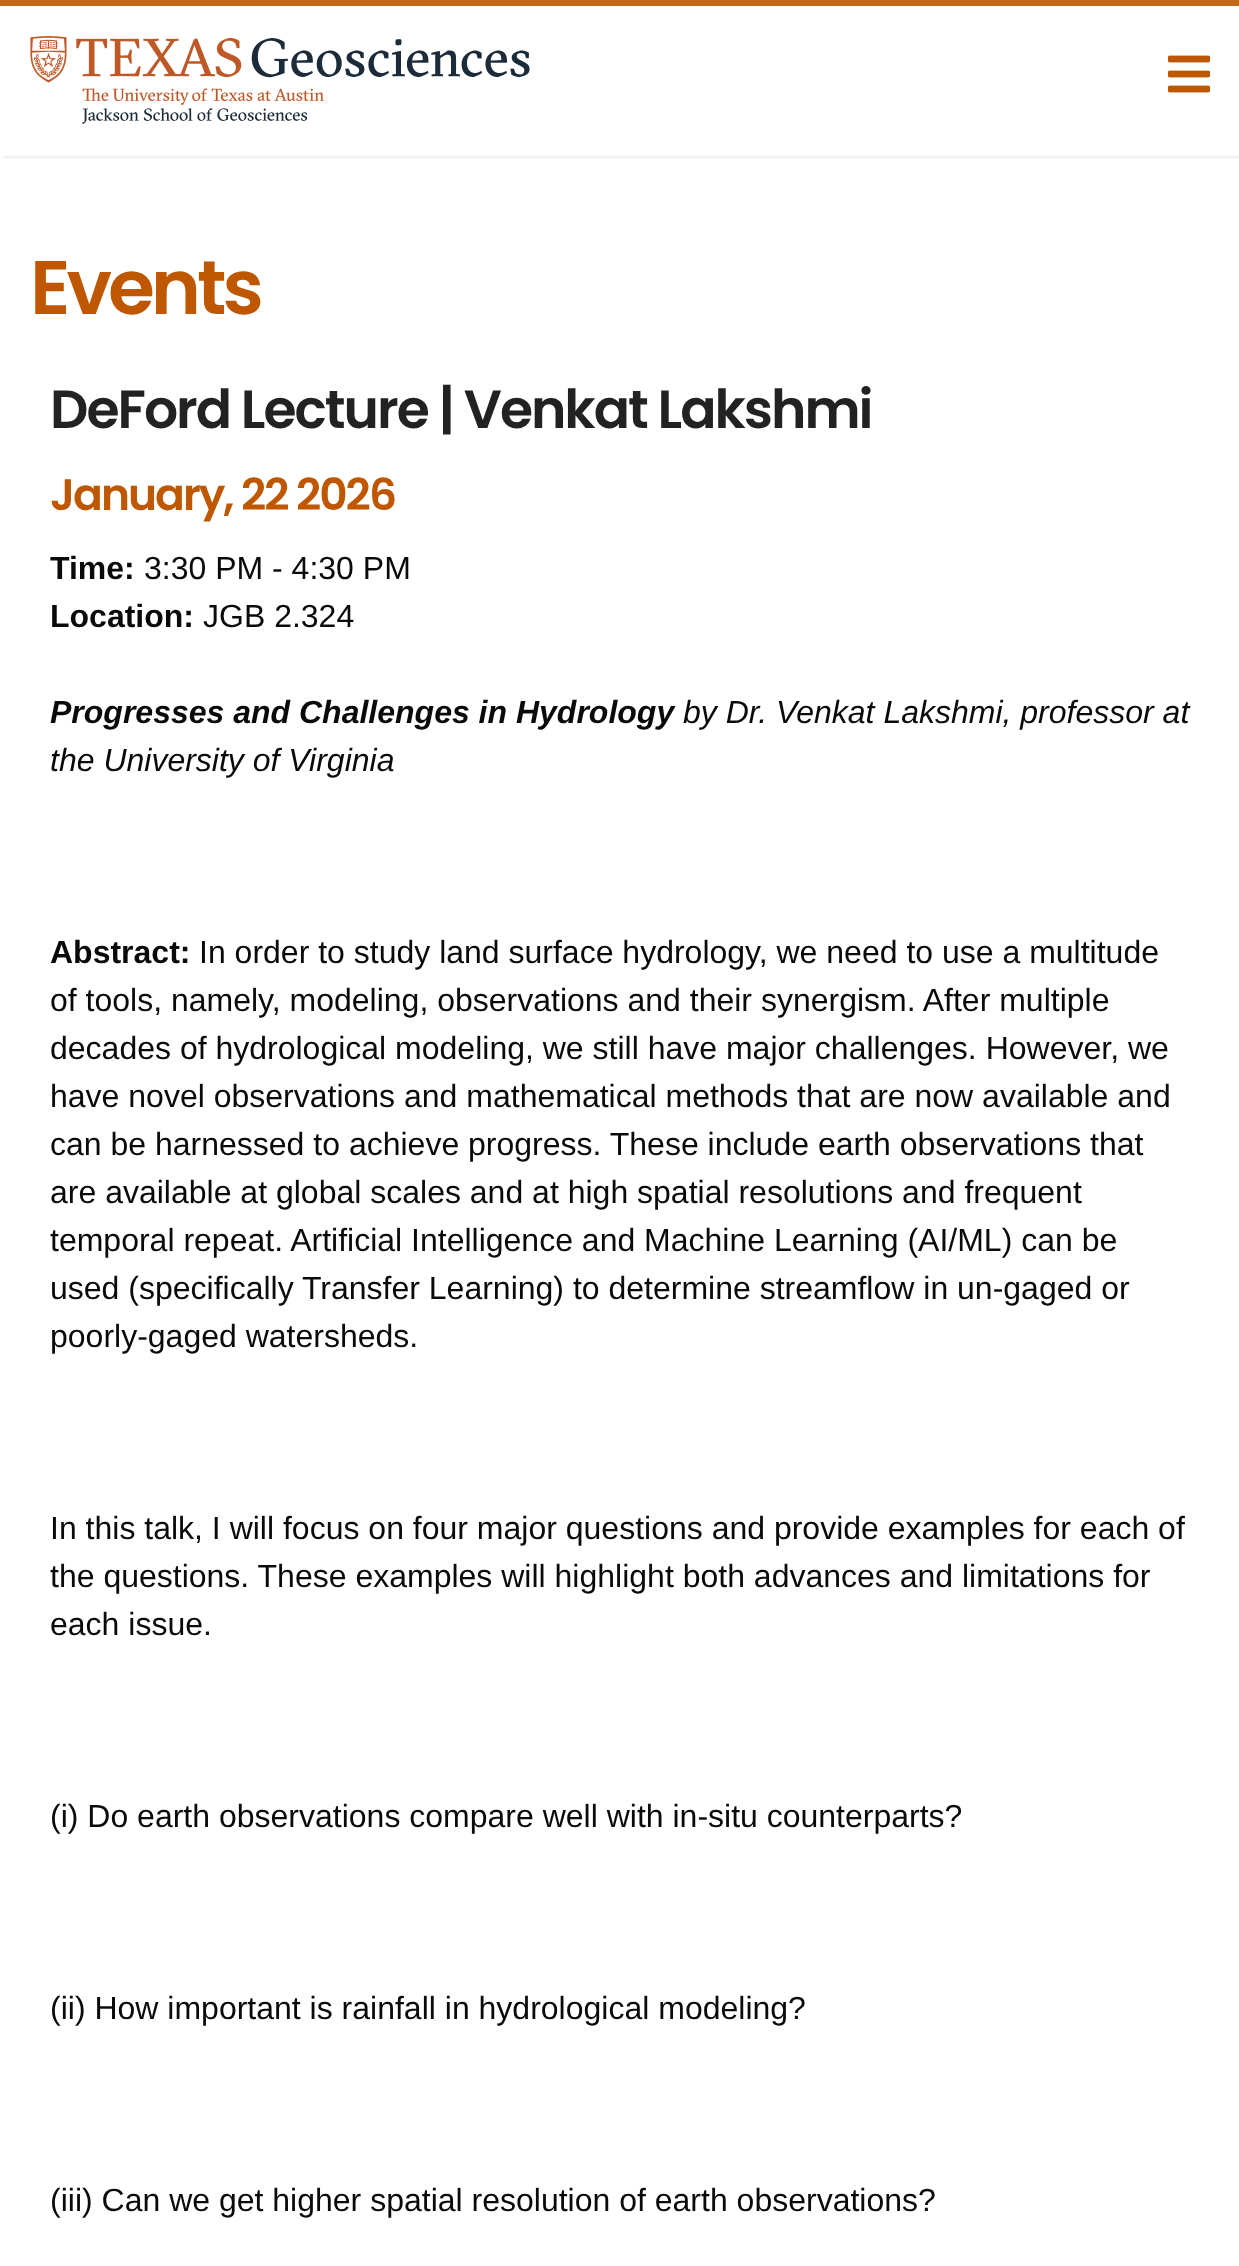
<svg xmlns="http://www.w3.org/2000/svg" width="1239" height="2266">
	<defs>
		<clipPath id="clip1"><rect x="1" y="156" width="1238" height="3" /></clipPath>
	</defs>
	<rect width="100%" height="100%" fill="#FFFFFF" />
	<g clip-path="url(#clip1)">
		<rect x="2" y="8" width="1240" height="150" fill="#000000" fill-opacity="0.08" filter="blur(2px)" />
	</g>
	<rect x="0" y="0" width="1239" height="6" fill="#C56819" />
	<image x="30" y="36" width="500" height="88" href="assets/img1.png" />
	<image x="1168" y="55" width="42" height="38" href="assets/img2.png" />
	<text x="30" y="314" font-family="Poppins" font-size="76" font-weight="600" letter-spacing="-4" fill="#BF5700">Events</text>
	<text x="50" y="428" font-family="Poppins" font-size="53.6" font-weight="600" letter-spacing="-2" fill="#222222">DeFord Lecture | Venkat Lakshmi</text>
	<text x="50" y="510" font-family="Poppins" font-size="44" font-weight="600" letter-spacing="-2" fill="#BF5700">January, 22 2026</text>
	<text x="50" y="579" font-family="Liberation Sans" font-size="32" font-weight="700" fill="#0A0A0A">Time:</text>
	<text x="144" y="579" font-family="Liberation Sans" font-size="32" fill="#0A0A0A">3:30 PM - 4:30 PM</text>
	<text x="50" y="627" font-family="Liberation Sans" font-size="32" font-weight="700" fill="#0A0A0A">Location:</text>
	<text x="203" y="627" font-family="Liberation Sans" font-size="32" fill="#0A0A0A">JGB 2.324</text>
	<text x="50" y="723" font-family="Liberation Sans" font-size="32" font-weight="700" font-style="italic" fill="#0A0A0A">Progresses and Challenges in Hydrology</text>
	<g font-family="Liberation Sans" font-size="32" font-style="italic" fill="#0A0A0A">
		<text x="683" y="723">by Dr. Venkat Lakshmi, professor at</text>
		<text x="50" y="771">the University of Virginia</text>
	</g>
	<text x="50" y="963" font-family="Liberation Sans" font-size="32" font-weight="700" fill="#0A0A0A">Abstract:</text>
	<g font-family="Liberation Sans" font-size="32" fill="#0A0A0A">
		<text x="199" y="963">In order to study land surface hydrology, we need to use a multitude</text>
		<text x="50" y="1011">of tools, namely, modeling, observations and their synergism. After multiple</text>
		<text x="50" y="1059">decades of hydrological modeling, we still have major challenges. However, we</text>
		<text x="50" y="1107">have novel observations and mathematical methods that are now available and</text>
		<text x="50" y="1155">can be harnessed to achieve progress. These include earth observations that</text>
		<text x="50" y="1203">are available at global scales and at high spatial resolutions and frequent</text>
		<text x="50" y="1251">temporal repeat. Artificial Intelligence and Machine Learning (AI/ML) can be</text>
		<text x="50" y="1299">used (specifically Transfer Learning) to determine streamflow in un-gaged or</text>
		<text x="50" y="1347">poorly-gaged watersheds.</text>
		<text x="50" y="1539">In this talk, I will focus on four major questions and provide examples for each of</text>
		<text x="50" y="1587">the questions. These examples will highlight both advances and limitations for</text>
		<text x="50" y="1635">each issue.</text>
		<text x="50" y="1827">(i) Do earth observations compare well with in-situ counterparts?</text>
		<text x="50" y="2019">(ii) How important is rainfall in hydrological modeling?</text>
		<text x="50" y="2211">(iii) Can we get higher spatial resolution of earth observations?</text>
	</g>
</svg>
